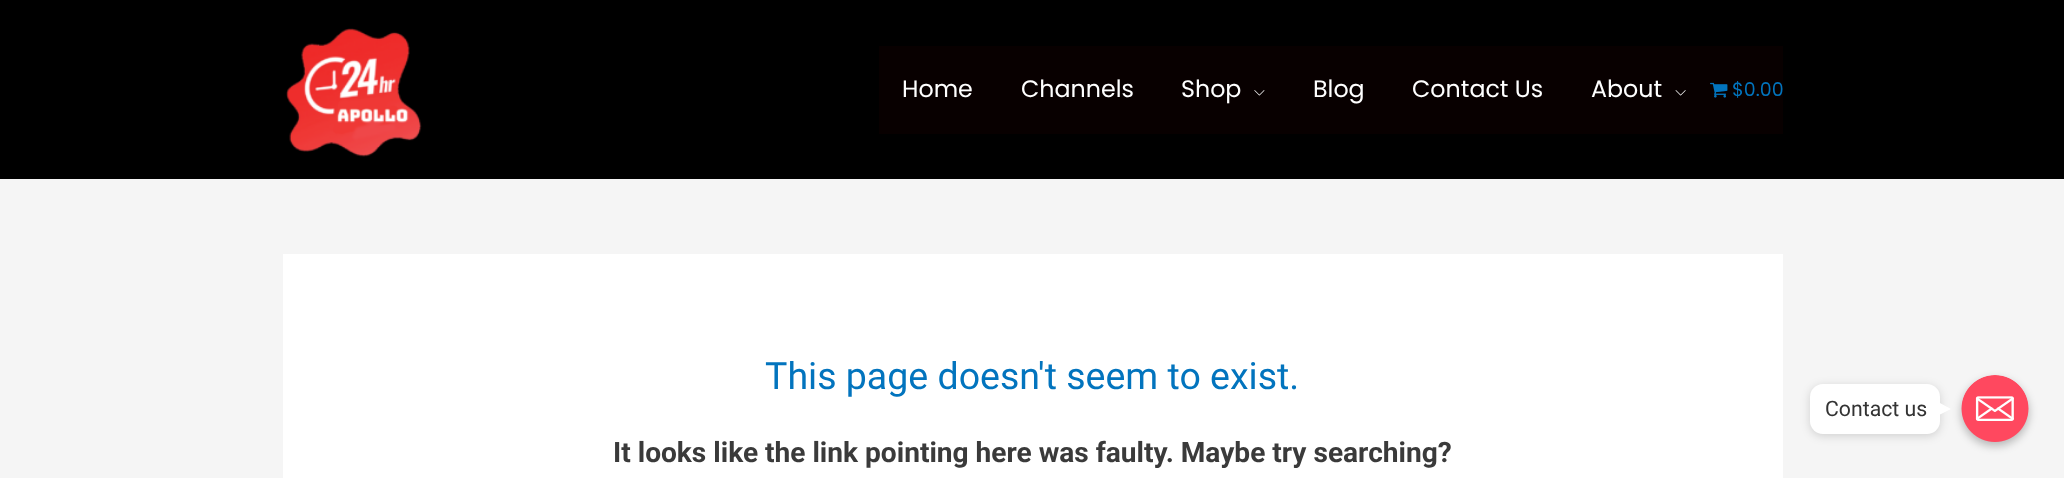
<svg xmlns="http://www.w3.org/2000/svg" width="2064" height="478">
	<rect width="100%" height="100%" fill="#F5F5F5" />
	<rect x="0" y="0" width="2064" height="179" fill="#000000" />
	<image x="286" y="28" width="136" height="129" href="assets/img1.png" />
	<rect x="879" y="46" width="904" height="88" fill="#080000" />
	<g font-family="Poppins" font-size="23.75" fill="#FFFFFF">
		<text x="902" y="97">Home</text>
		<text x="1021" y="97">Channels</text>
		<text x="1181" y="97">Shop</text>
	</g>
	<image x="1254" y="90" width="11" height="6" href="assets/img2.png" />
	<g font-family="Poppins" font-size="23.75" fill="#FFFFFF">
		<text x="1313" y="97">Blog</text>
		<text x="1412" y="97">Contact Us</text>
		<text x="1591" y="97">About</text>
	</g>
	<image x="1675" y="90" width="11" height="6" href="assets/img3.png" />
	<image x="1710" y="82" width="18" height="16" href="assets/img4.png" />
	<text x="1732" y="96" font-family="Poppins" font-size="19" fill="#0274BE">$0.00</text>
	<rect x="283" y="254" width="1500" height="224" fill="#FFFFFF" />
	<text x="765" y="389" font-family="Roboto" font-size="37.5" fill="#0274BE">This page doesn't seem to exist.</text>
	<text x="613" y="462" font-family="Roboto" font-size="28.1" font-weight="700" fill="#3A3A3A">It looks like the link pointing here was faulty. Maybe try searching?</text>
	<rect x="1810" y="386" width="130" height="50" rx="13" fill="#000000" fill-opacity="0.15" filter="blur(5px)" />
	<rect x="1810" y="384" width="130" height="50" rx="13" fill="#FFFFFF" />
	<text x="1825" y="416" font-family="Roboto" font-size="21.25" fill="#333333">Contact us</text>
	<rect x="1961" y="379" width="68" height="67" rx="33.5" fill="#000000" fill-opacity="0.25" filter="blur(4px)" />
	<path d="M1939 415V402.5L1951 409Z" fill="#FFFFFF" />
	<image x="1961" y="375" width="68" height="67" href="assets/img5.png" />
</svg>
